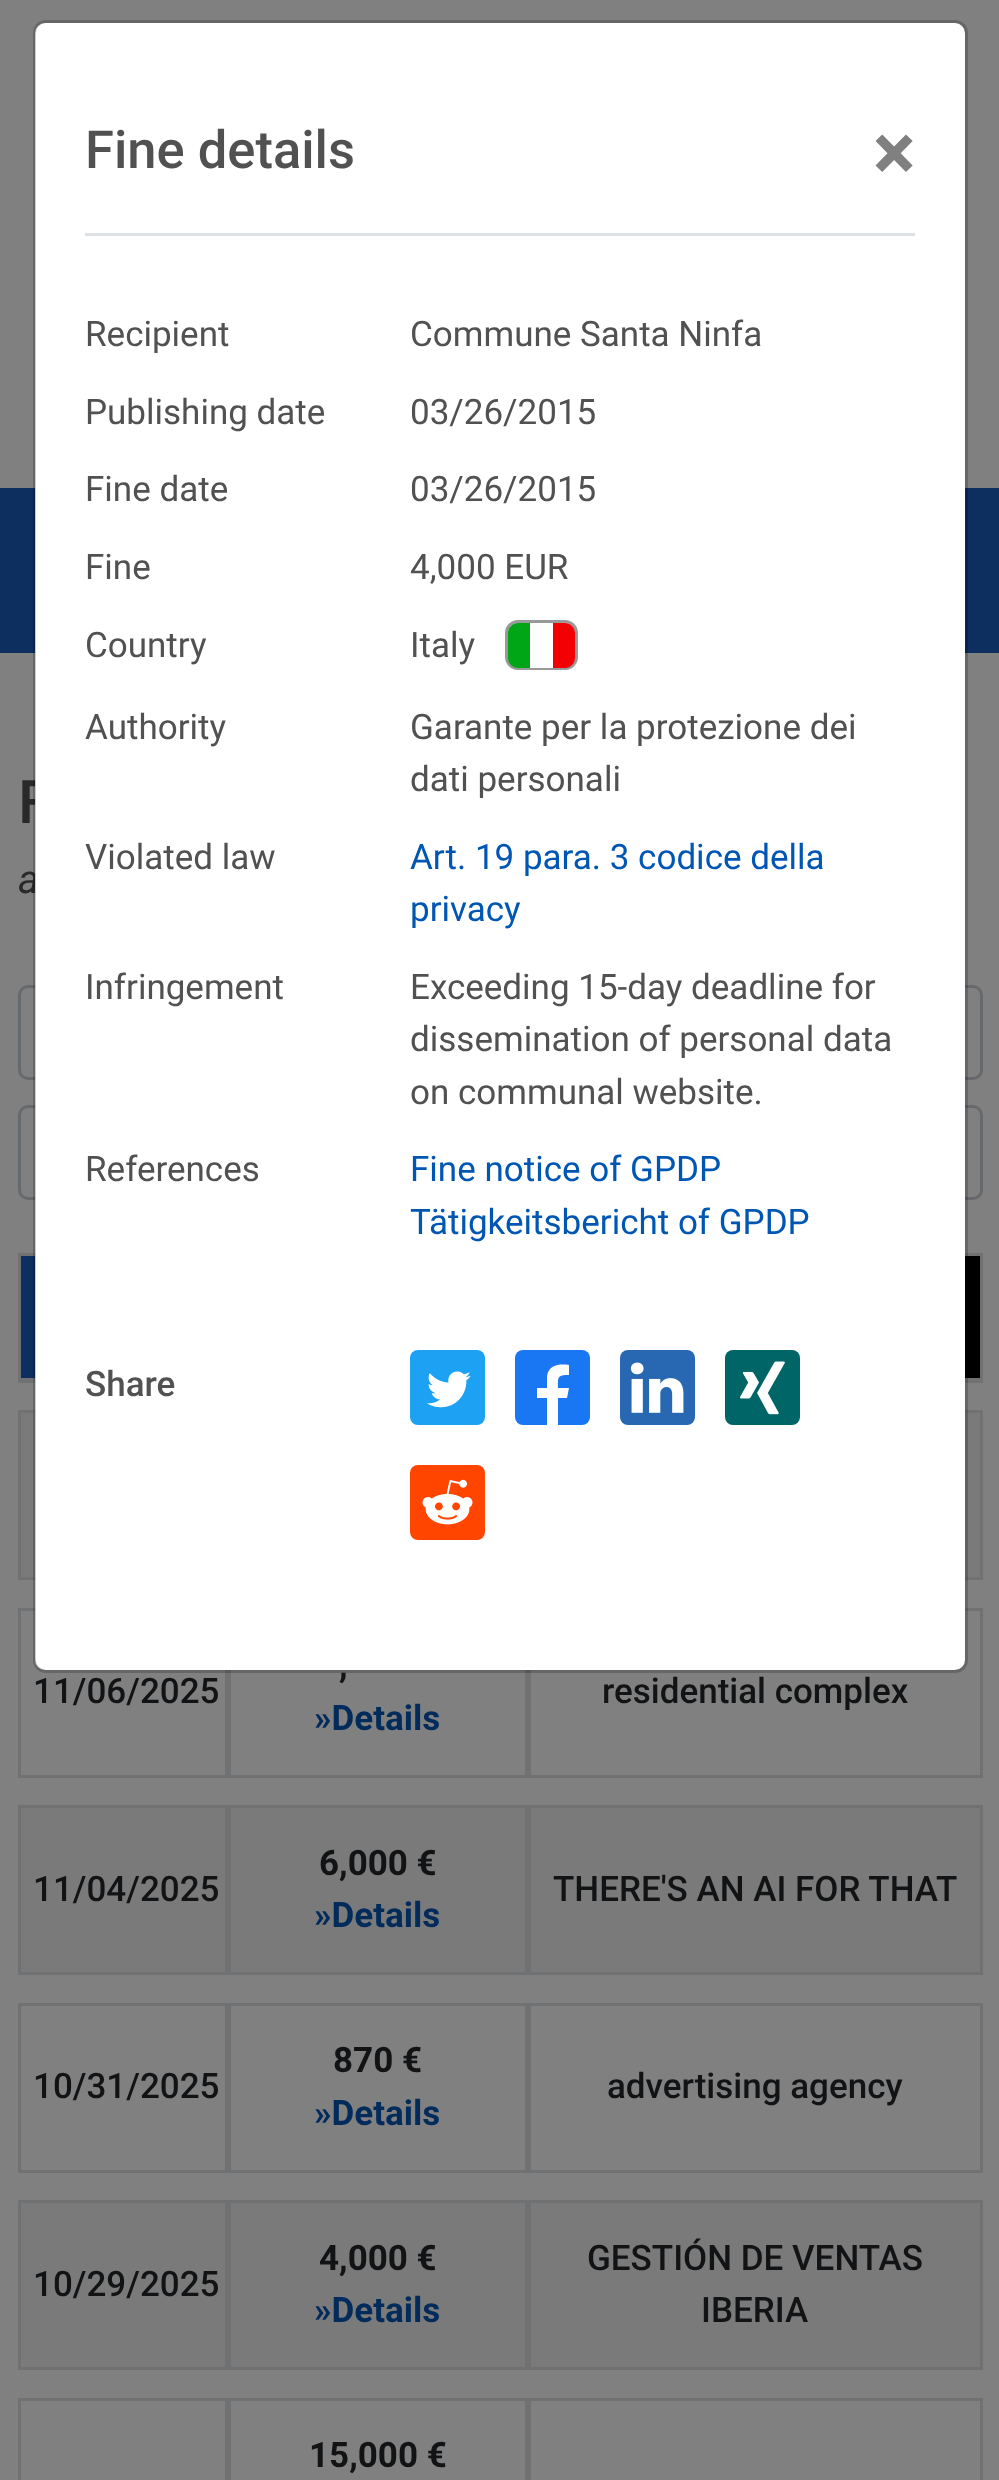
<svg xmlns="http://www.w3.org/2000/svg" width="999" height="2480">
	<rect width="100%" height="100%" fill="#808080" />
	<rect x="0" y="488" width="999" height="165" fill="#0D2F60" />
	<text x="18" y="823" font-family="Roboto" font-size="60" font-weight="500" fill="#292929">F</text>
	<text x="18" y="893" font-family="Roboto" font-size="40" font-style="italic" fill="#292929">a</text>
	<rect x="19.5" y="986.5" width="962" height="92" rx="8.5" fill="none" stroke="#676A6D" stroke-width="3" />
	<rect x="19.5" y="1106.5" width="962" height="92" rx="8.5" fill="none" stroke="#676A6D" stroke-width="3" />
	<rect x="21" y="1413" width="959" height="164" fill="#7A7A7A" />
	<rect x="19.5" y="1411.5" width="207" height="167" fill="none" stroke="#6F7173" stroke-width="3" />
	<rect x="529.5" y="1411.5" width="452" height="167" fill="none" stroke="#6F7173" stroke-width="3" />
	<rect x="19.5" y="1609.5" width="207" height="167" fill="none" stroke="#6F7173" stroke-width="3" />
	<rect x="229.5" y="1609.5" width="297" height="167" fill="none" stroke="#6F7173" stroke-width="3" />
	<rect x="529.5" y="1609.5" width="452" height="167" fill="none" stroke="#6F7173" stroke-width="3" />
	<rect x="35" y="23" width="930" height="1647" rx="10" fill="#FFFFFF" />
	<rect x="21" y="1256" width="14" height="122" fill="#0D2F60" />
	<rect x="18" y="1253" width="17" height="3" fill="#6F7173" />
	<rect x="18" y="1378" width="17" height="5" fill="#6F7173" />
	<rect x="965" y="1256" width="15" height="122" fill="#000000" />
	<rect x="965" y="1253" width="18" height="3" fill="#6F7173" />
	<rect x="980" y="1253" width="3" height="130" fill="#6F7173" />
	<rect x="965" y="1378" width="18" height="5" fill="#6F7173" />
	<text x="339" y="1677" font-family="Roboto" font-size="35" font-weight="700" fill="#111315">,</text>
	<rect x="34.5" y="21.5" width="932" height="1650" rx="11.5" fill="none" stroke="#000000" stroke-opacity="0.2" stroke-width="3" />
	<rect x="85" y="233" width="830" height="3" fill="#DEE2E6" />
	<text x="85" y="168" font-family="Roboto" font-size="52.5" font-weight="500" fill="#515151">Fine details</text>
	<text x="873" y="180" font-family="Roboto" font-size="80" font-weight="700" fill="#808080">×</text>
	<g font-family="Roboto" font-size="35" fill="#515151">
		<text x="85" y="346">Recipient</text>
		<text x="410" y="346">Commune Santa Ninfa</text>
		<text x="85" y="424">Publishing date</text>
		<text x="410" y="424">03/26/2015</text>
		<text x="85" y="501">Fine date</text>
		<text x="410" y="501">03/26/2015</text>
		<text x="85" y="579">Fine</text>
		<text x="410" y="579">4,000 EUR</text>
		<text x="85" y="657">Country</text>
		<text x="410" y="657">Italy</text>
	</g>
	<rect x="506.5" y="621.5" width="70" height="47" rx="11.5" fill="none" stroke="#999999" stroke-width="3" />
	<path d="M518 623H530V668H518C512.5 668 508 663.5 508 658V633C508 627.5 512.5 623 518 623Z" fill="#01A616" />
	<rect x="530" y="667" width="23" height="1" fill="#FFFFFF" />
	<path d="M553 623H565C570.5 623 575 627.5 575 633V658C575 663.5 570.5 668 565 668H553Z" fill="#F30004" />
	<g font-family="Roboto" font-size="35" fill="#515151">
		<text x="85" y="739">Authority</text>
		<text x="410" y="739">Garante per la protezione dei</text>
		<text x="410" y="791">dati personali</text>
		<text x="85" y="869">Violated law</text>
	</g>
	<g font-family="Roboto" font-size="35" fill="#0056B3">
		<text x="410" y="869">Art. 19 para. 3 codice della</text>
		<text x="410" y="921">privacy</text>
	</g>
	<g font-family="Roboto" font-size="35" fill="#515151">
		<text x="85" y="999">Infringement</text>
		<text x="410" y="999">Exceeding 15-day deadline for</text>
		<text x="410" y="1051">dissemination of personal data</text>
		<text x="410" y="1104">on communal website.</text>
		<text x="85" y="1181">References</text>
	</g>
	<g font-family="Roboto" font-size="35" fill="#0056B3">
		<text x="410" y="1181">Fine notice of GPDP</text>
		<text x="410" y="1234">Tätigkeitsbericht of GPDP</text>
	</g>
	<text x="85" y="1396" font-family="Roboto" font-size="35" font-weight="500" fill="#515151">Share</text>
	<rect x="410" y="1350" width="75" height="75" rx="8" fill="#1DA1F2" />
	<image x="427" y="1371" width="44" height="37" href="assets/img1.png" />
	<rect x="515" y="1350" width="75" height="75" rx="8" fill="#1977F3" />
	<path d="M547 1425V1398H537V1388H547V1376C549 1364 560 1364 569 1365V1375C557 1375 558 1377 558 1388H569L567 1398H558V1425Z" fill="#FFFFFF" />
	<rect x="620" y="1350" width="75" height="75" rx="8" fill="#2867B2" />
	<image x="630" y="1362" width="54" height="51" href="assets/img2.png" />
	<rect x="725" y="1350" width="75" height="75" rx="8" fill="#006567" />
	<image x="740" y="1361" width="45" height="54" href="assets/img3.png" />
	<rect x="410" y="1465" width="75" height="75" rx="8" fill="#FF4500" />
	<image x="422" y="1479" width="51" height="46" href="assets/img4.png" />
	<rect x="18" y="1253" width="3" height="130" fill="#6F7173" />
	<text x="33" y="1703" font-family="Roboto" font-size="35" font-weight="500" fill="#111315">11/06/2025</text>
	<text x="314" y="1730" font-family="Roboto" font-size="35" font-weight="700" fill="#002B5A">»Details</text>
	<text x="602" y="1703" font-family="Roboto" font-size="35" font-weight="500" fill="#111315">residential complex</text>
	<rect x="21" y="1808" width="959" height="164" fill="#7A7A7A" />
	<rect x="19.5" y="1806.5" width="207" height="167" fill="none" stroke="#6F7173" stroke-width="3" />
	<text x="33" y="1901" font-family="Roboto" font-size="35" font-weight="500" fill="#111315">11/04/2025</text>
	<rect x="229.5" y="1806.5" width="297" height="167" fill="none" stroke="#6F7173" stroke-width="3" />
	<text x="319" y="1875" font-family="Roboto" font-size="35" font-weight="700" fill="#111315">6,000 €</text>
	<text x="314" y="1927" font-family="Roboto" font-size="35" font-weight="700" fill="#002B5A">»Details</text>
	<rect x="529.5" y="1806.5" width="452" height="167" fill="none" stroke="#6F7173" stroke-width="3" />
	<text x="553" y="1901" font-family="Roboto" font-size="35" font-weight="500" fill="#111315">THERE'S AN AI FOR THAT</text>
	<rect x="19.5" y="2004.5" width="207" height="167" fill="none" stroke="#6F7173" stroke-width="3" />
	<text x="33" y="2098" font-family="Roboto" font-size="35" font-weight="500" fill="#111315">10/31/2025</text>
	<rect x="229.5" y="2004.5" width="297" height="167" fill="none" stroke="#6F7173" stroke-width="3" />
	<text x="333" y="2072" font-family="Roboto" font-size="35" font-weight="700" fill="#111315">870 €</text>
	<text x="314" y="2125" font-family="Roboto" font-size="35" font-weight="700" fill="#002B5A">»Details</text>
	<rect x="529.5" y="2004.5" width="452" height="167" fill="none" stroke="#6F7173" stroke-width="3" />
	<text x="607" y="2098" font-family="Roboto" font-size="35" font-weight="500" fill="#111315">advertising agency</text>
	<rect x="21" y="2203" width="959" height="164" fill="#7A7A7A" />
	<rect x="19.5" y="2201.5" width="207" height="167" fill="none" stroke="#6F7173" stroke-width="3" />
	<text x="33" y="2296" font-family="Roboto" font-size="35" font-weight="500" fill="#111315">10/29/2025</text>
	<rect x="229.5" y="2201.5" width="297" height="167" fill="none" stroke="#6F7173" stroke-width="3" />
	<text x="319" y="2270" font-family="Roboto" font-size="35" font-weight="700" fill="#111315">4,000 €</text>
	<text x="314" y="2322" font-family="Roboto" font-size="35" font-weight="700" fill="#002B5A">»Details</text>
	<rect x="529.5" y="2201.5" width="452" height="167" fill="none" stroke="#6F7173" stroke-width="3" />
	<g font-family="Roboto" font-size="35" font-weight="500" fill="#111315">
		<text x="587" y="2270">GESTIÓN DE VENTAS</text>
		<text x="701" y="2322">IBERIA</text>
	</g>
	<rect x="19.5" y="2399.5" width="207" height="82" fill="none" stroke="#6F7173" stroke-width="3" />
	<rect x="229.5" y="2399.5" width="297" height="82" fill="none" stroke="#6F7173" stroke-width="3" />
	<text x="309" y="2467" font-family="Roboto" font-size="35" font-weight="700" fill="#111315">15,000 €</text>
	<rect x="529.5" y="2399.5" width="452" height="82" fill="none" stroke="#6F7173" stroke-width="3" />
</svg>
